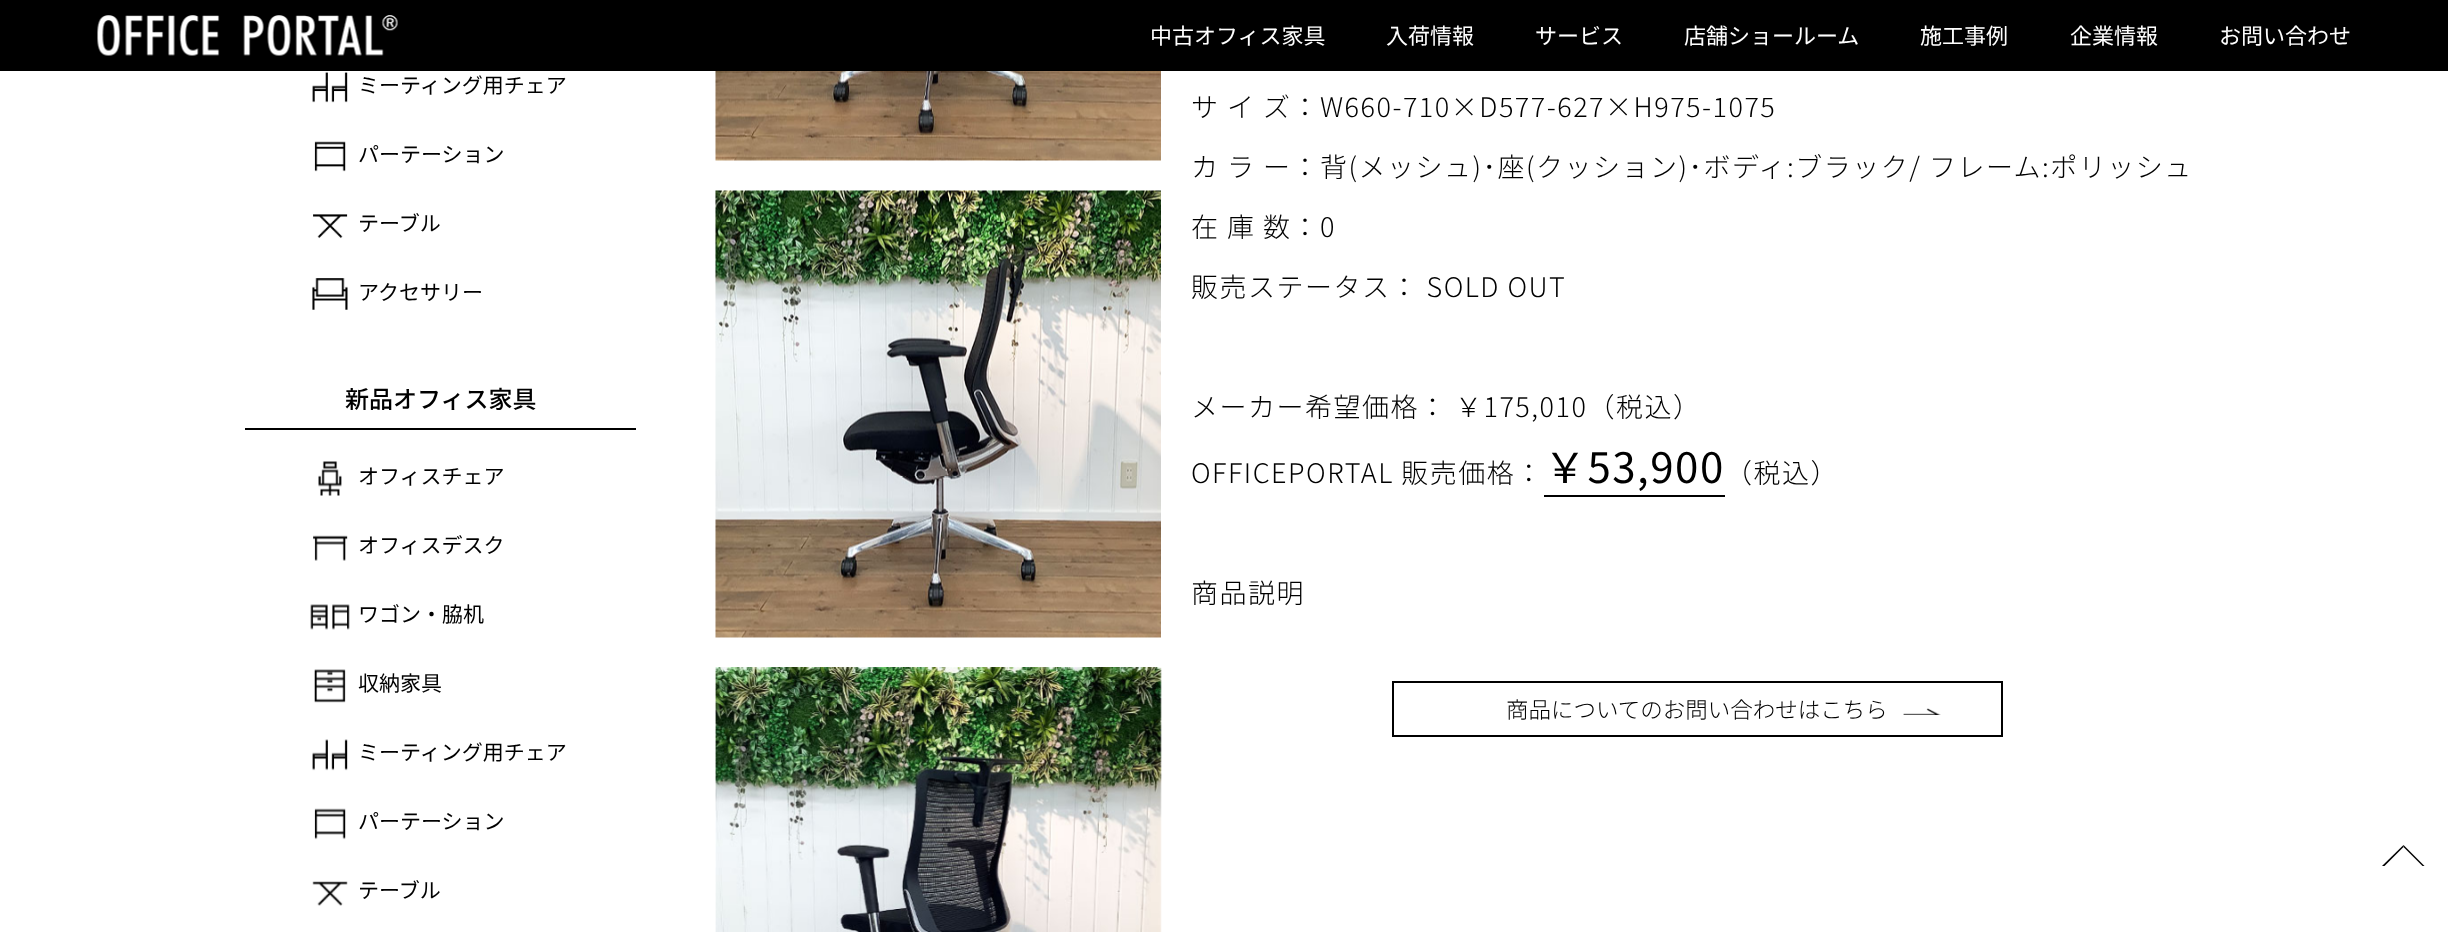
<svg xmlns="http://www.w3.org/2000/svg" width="2448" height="932">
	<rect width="100%" height="100%" fill="#FFFFFF" />
	<rect x="0" y="0" width="2448" height="71" fill="#000000" />
	<image x="97" y="15" width="301" height="41" href="assets/img1.png" />
	<g font-family="Noto Sans JP" font-size="22" fill="#FFFFFF">
		<text x="1150" y="44">中古オフィス家具</text>
		<text x="1386" y="44">入荷情報</text>
		<text x="1535" y="44">サービス</text>
		<text x="1684" y="44">店舗ショールーム</text>
		<text x="1920" y="44">施工事例</text>
		<text x="2070" y="44">企業情報</text>
		<text x="2219" y="44">お問い合わせ</text>
	</g>
	<image x="312" y="71" width="36" height="32" href="assets/img2.png" />
	<text x="358" y="93" font-family="Noto Sans JP" font-size="21" fill="#000000">ミーティング用チェア</text>
	<image x="314" y="141" width="32" height="31" href="assets/img3.png" />
	<text x="358" y="162" font-family="Noto Sans JP" font-size="21" fill="#000000">パーテーション</text>
	<image x="313" y="214" width="35" height="25" href="assets/img4.png" />
	<text x="358" y="231" font-family="Noto Sans JP" font-size="21" fill="#000000">テーブル</text>
	<image x="312" y="278" width="36" height="32" href="assets/img5.png" />
	<text x="358" y="300" font-family="Noto Sans JP" font-size="21" fill="#000000">アクセサリー</text>
	<rect x="245" y="428" width="391" height="2" fill="#000000" />
	<text x="345" y="408" font-family="Noto Sans JP" font-size="24" font-weight="500" fill="#000000">新品オフィス家具</text>
	<image x="318" y="461" width="24" height="35" href="assets/img6.png" />
	<text x="358" y="484" font-family="Noto Sans JP" font-size="21" fill="#000000">オフィスチェア</text>
	<image x="313" y="535" width="35" height="26" href="assets/img7.png" />
	<text x="358" y="553" font-family="Noto Sans JP" font-size="21" fill="#000000">オフィスデスク</text>
	<image x="310" y="604" width="40" height="26" href="assets/img8.png" />
	<text x="358" y="622" font-family="Noto Sans JP" font-size="21" fill="#000000">ワゴン・脇机</text>
	<image x="314" y="669" width="32" height="34" href="assets/img9.png" />
	<text x="358" y="691" font-family="Noto Sans JP" font-size="21" fill="#000000">収納家具</text>
	<image x="312" y="739" width="36" height="32" href="assets/img10.png" />
	<text x="358" y="760" font-family="Noto Sans JP" font-size="21" fill="#000000">ミーティング用チェア</text>
	<image x="314" y="808" width="32" height="32" href="assets/img11.png" />
	<text x="358" y="829" font-family="Noto Sans JP" font-size="21" fill="#000000">パーテーション</text>
	<image x="312" y="881" width="36" height="25" href="assets/img12.png" />
	<text x="358" y="898" font-family="Noto Sans JP" font-size="21" fill="#000000">テーブル</text>
	<image x="715" y="71" width="446" height="90" href="assets/img13.png" />
	<image x="715" y="190" width="446" height="448" href="assets/img14.png" />
	<image x="715" y="667" width="447" height="265" href="assets/img15.png" />
	<g font-family="Noto Sans JP" font-size="27" font-weight="300" letter-spacing="1.5" fill="#000000">
		<text x="1191" y="117">サ イ ズ：W660-710×D577-627×H975-1075</text>
		<text x="1191" y="177">カ ラ ー：背(メッシュ)･座(クッション)･ボディ:ブラック/ フレーム:ポリッシュ</text>
		<text x="1191" y="237">在 庫 数：0</text>
		<text x="1191" y="297">販売ステータス： SOLD OUT</text>
		<text x="1191" y="417">メーカー希望価格： ￥175,010（税込）</text>
		<text x="1191" y="483">OFFICEPORTAL 販売価格：</text>
	</g>
	<text x="1544" y="483" font-family="Noto Sans JP" font-size="42" letter-spacing="1.5" fill="#000000">￥53,900</text>
	<rect x="1544" y="495" width="181" height="2" fill="#000000" />
	<g font-family="Noto Sans JP" font-size="27" font-weight="300" letter-spacing="1.5" fill="#000000">
		<text x="1725" y="483">（税込）</text>
		<text x="1191" y="603">商品説明</text>
	</g>
	<rect x="1393" y="682" width="609" height="54" fill="none" stroke="#000000" stroke-width="2" />
	<text x="1506" y="718" font-family="Noto Sans JP" font-size="22.5" font-weight="300" fill="#000000">商品についてのお問い合わせはこちら</text>
	<image x="1903" y="708" width="38" height="7" href="assets/img16.png" />
	<path d="M2382 866L2403.5 845V847L2384.5 866Z" fill="#000000" />
	<path d="M2403.5 845L2424.5 866H2422.5L2403.5 847Z" fill="#000000" />
</svg>
